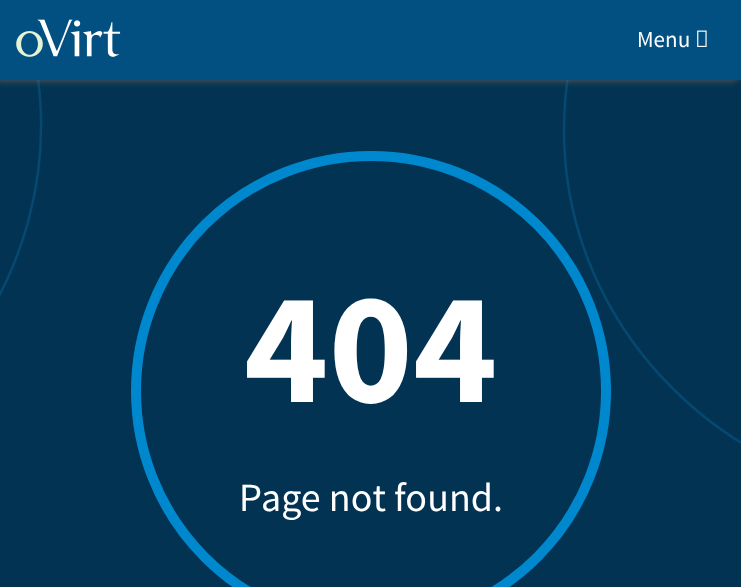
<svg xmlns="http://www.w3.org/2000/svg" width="741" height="587">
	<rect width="100%" height="100%" fill="#023352" />
	<image x="0" y="80" width="741" height="364" href="assets/img1.png" />
	<rect x="-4" y="0" width="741" height="80" fill="#626060" filter="blur(4.5px)" />
	<rect x="0" y="0" width="741" height="80" fill="#025081" />
	<image x="16" y="19" width="105" height="38" href="assets/img2.png" />
	<text x="637" y="47" font-family="Source Sans Pro" font-size="23" fill="#FFFFFF">Menu</text>
	<image x="697" y="30" width="10" height="17" href="assets/img3.png" />
	<circle cx="371" cy="391" r="235" fill="none" stroke="#0088CE" stroke-width="10" />
	<text x="244" y="402" font-family="Source Sans Pro" font-size="160" font-weight="700" fill="#FFFFFF">404</text>
	<text x="239" y="511" font-family="Source Sans Pro" font-size="40" fill="#FFFFFF">Page not found.</text>
</svg>
